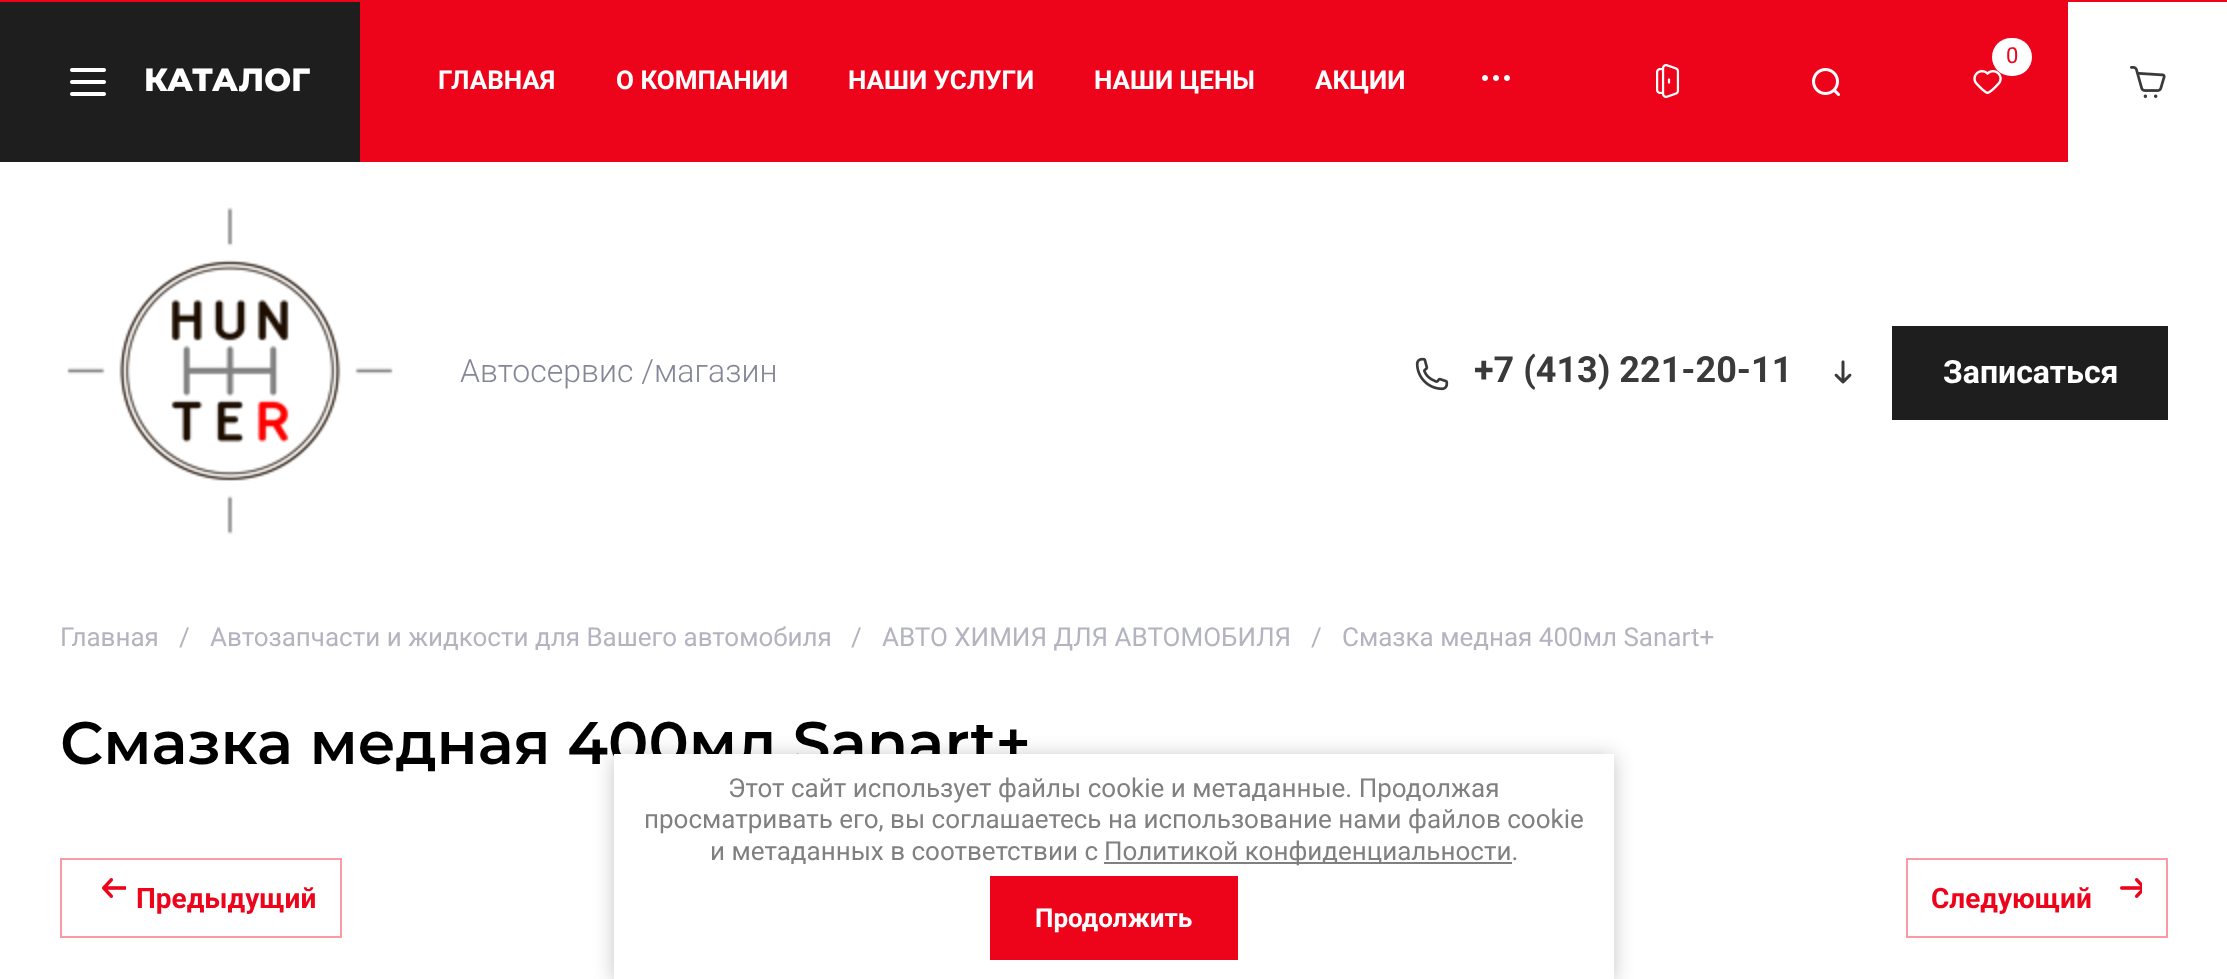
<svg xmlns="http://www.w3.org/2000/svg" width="2227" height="979">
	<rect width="100%" height="100%" fill="#FFFFFF" />
	<rect x="0" y="0" width="2227" height="162" fill="#ED041B" />
	<image x="1973" y="70" width="29" height="24" href="assets/img1.png" />
	<rect x="1992" y="38" width="40" height="38" rx="19" fill="#FFFFFF" />
	<text x="2006" y="63" font-family="Roboto" font-size="22" fill="#ED041B">0</text>
	<rect x="2068" y="2" width="159" height="160" fill="#FFFFFF" />
	<image x="2130" y="66" width="36" height="32" href="assets/img2.png" />
	<image x="1656" y="64" width="24" height="34" href="assets/img3.png" />
	<image x="1812" y="68" width="28" height="28" href="assets/img4.png" />
	<rect x="0" y="2" width="360" height="160" fill="#1E1E1E" />
	<image x="70" y="68" width="36" height="28" href="assets/img5.png" />
	<text x="144" y="91" font-family="Montserrat" font-size="32" font-weight="800" fill="#FFFFFF">КАТАЛОГ</text>
	<g font-family="Roboto" font-size="26" font-weight="700" fill="#FFFFFF">
		<text x="438" y="89">ГЛАВНАЯ</text>
		<text x="616" y="89">О КОМПАНИИ</text>
		<text x="848" y="89">НАШИ УСЛУГИ</text>
		<text x="1094" y="89">НАШИ ЦЕНЫ</text>
		<text x="1315" y="89">АКЦИИ</text>
	</g>
	<image x="1482" y="75" width="28" height="6" href="assets/img6.png" />
	<image x="67" y="207" width="326" height="328" href="assets/img7.png" />
	<text x="460" y="382" font-family="Roboto" font-size="32" font-weight="300" fill="#858798">Автосервис /магазин</text>
	<image x="1415" y="357" width="34" height="34" href="assets/img8.png" />
	<text x="1474" y="382" font-family="Roboto" font-size="36" font-weight="700" fill="#3A3A3A">+7 (413) 221-20-11</text>
	<image x="1834" y="360" width="18" height="24" href="assets/img9.png" />
	<rect x="1892" y="326" width="276" height="94" fill="#1E1E1E" />
	<text x="1943" y="383" font-family="Roboto" font-size="32" font-weight="700" fill="#FFFFFF">Записаться</text>
	<g font-family="Roboto" font-size="26" fill="#B3B4BF">
		<text x="60" y="646">Главная</text>
		<text x="179" y="646">/</text>
		<text x="210" y="646">Автозапчасти и жидкости для Вашего автомобиля</text>
		<text x="851" y="646">/</text>
		<text x="882" y="646">АВТО ХИМИЯ ДЛЯ АВТОМОБИЛЯ</text>
		<text x="1311" y="646">/</text>
		<text x="1342" y="646">Смазка медная 400мл Sanart+</text>
	</g>
	<text x="60" y="764" font-family="Montserrat" font-size="60" font-weight="600" fill="#000000">Смазка медная 400мл Sanart+</text>
	<rect x="61" y="859" width="280" height="78" fill="none" stroke="#F89BA4" stroke-width="2" />
	<image x="102" y="878" width="24" height="20" href="assets/img10.png" />
	<text x="136" y="908" font-family="Roboto" font-size="28" font-weight="700" fill="#ED041B">Предыдущий</text>
	<rect x="1907" y="859" width="260" height="78" fill="none" stroke="#F89BA4" stroke-width="2" />
	<text x="1931" y="908" font-family="Roboto" font-size="28" font-weight="700" fill="#ED041B">Следующий</text>
	<image x="2120" y="878" width="22" height="20" href="assets/img11.png" />
	<rect x="614" y="756" width="1000" height="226" fill="#000000" fill-opacity="0.23" filter="blur(10px)" />
	<rect x="614" y="754" width="1000" height="225" fill="#FFFFFF" />
	<g font-family="Roboto" font-size="26" fill="#808080">
		<text x="728" y="797">Этот сайт использует файлы cookie и метаданные. Продолжая</text>
		<text x="644" y="828">просматривать его, вы соглашаетесь на использование нами файлов cookie</text>
		<text x="710" y="860">и метаданных в соответствии с</text>
	</g>
	<rect x="1104" y="862" width="408" height="2" fill="#808080" />
	<text x="1104" y="860" font-family="Roboto" font-size="26" fill="#808080">Политикой конфиденциальности.</text>
	<rect x="990" y="876" width="248" height="84" fill="#ED041B" />
	<text x="1035" y="927" font-family="Roboto" font-size="26" font-weight="700" fill="#FFFFFF">Продолжить</text>
</svg>
